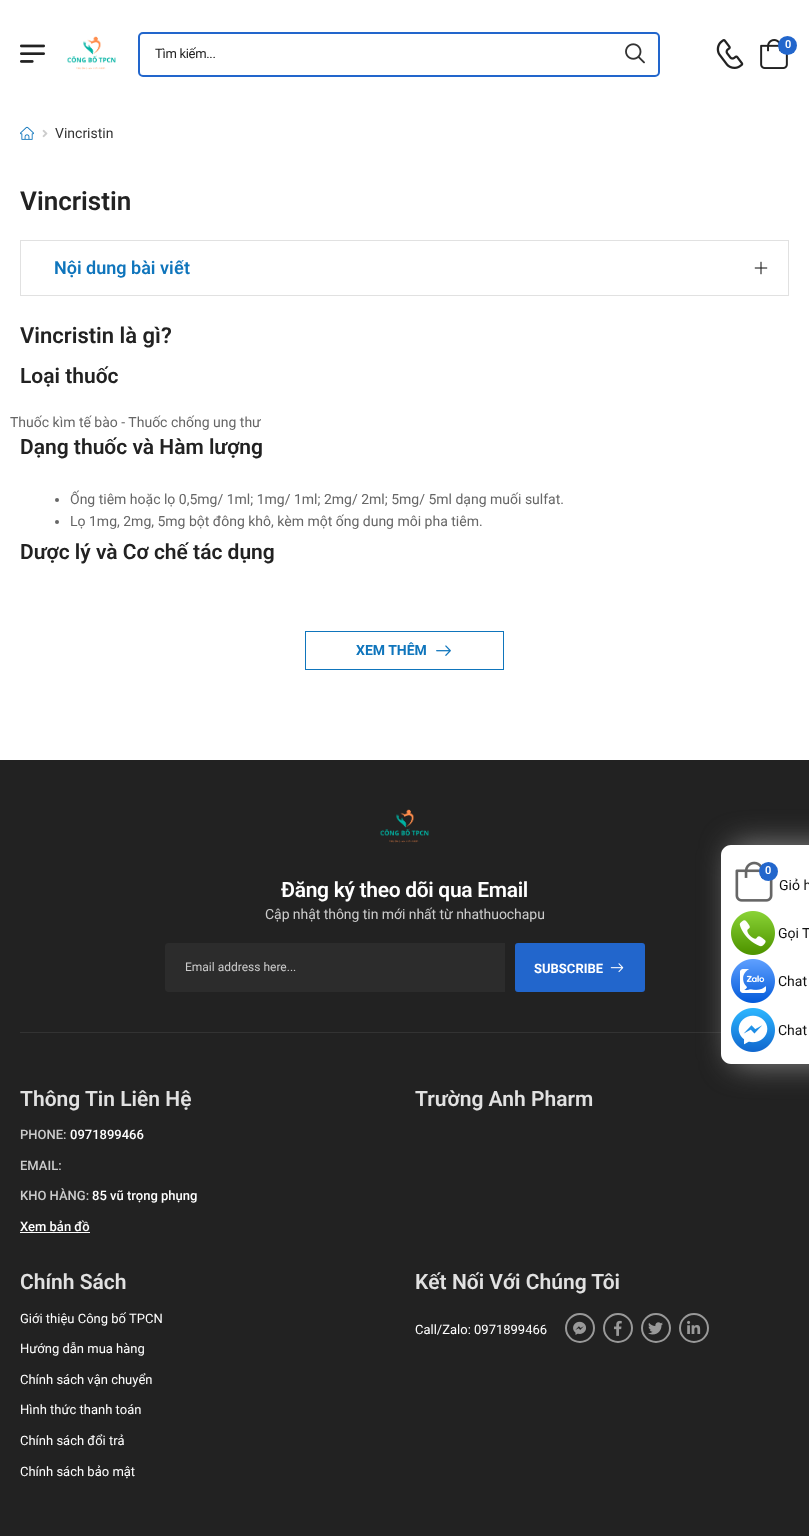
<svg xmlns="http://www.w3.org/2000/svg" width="809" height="1536">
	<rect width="100%" height="100%" fill="#FFFFFF" />
	<image x="716" y="39" width="28" height="30" href="assets/img1.png" />
	<image x="760" y="39" width="28" height="30" href="assets/img2.png" />
	<circle cx="787.5" cy="45.5" r="9.5" fill="#2266CC" />
	<text x="785" y="48" font-family="Roboto" font-size="11" font-weight="600" letter-spacing="-0.3" fill="#FFFFFF">0</text>
	<image x="20" y="44" width="25" height="19" href="assets/img3.png" />
	<image x="67" y="36" width="49" height="34" href="assets/img4.png" />
	<rect x="139" y="33" width="520" height="43" rx="4" fill="none" stroke="#2266CC" stroke-width="2" />
	<text x="155" y="58" font-family="Roboto" font-size="13" letter-spacing="-0.3" fill="#222222">Tìm kiếm...</text>
	<image x="625" y="43" width="20" height="21" href="assets/img5.png" />
	<image x="20" y="126" width="14" height="14" href="assets/img6.png" />
	<image x="42" y="129" width="6" height="9" href="assets/img7.png" />
	<text x="55" y="138" font-family="Roboto" font-size="14" fill="#333333">Vincristin</text>
	<text x="20" y="210" font-family="Roboto" font-size="26" font-weight="600" fill="#222222">Vincristin</text>
	<rect x="20.5" y="240.5" width="768" height="55" fill="none" stroke="#E1E1E1" />
	<text x="54" y="274" font-family="Roboto" font-size="18" font-weight="600" fill="#0F75BC">Nội dung bài vi</text>
	<text x="174" y="274" font-family="Liberation Sans" font-size="18" font-weight="700" fill="#0F75BC">ế</text>
	<text x="184" y="274" font-family="Roboto" font-size="18" font-weight="600" fill="#0F75BC">t</text>
	<image x="754" y="261" width="14" height="14" href="assets/img8.png" />
	<text x="20" y="343" font-family="Roboto" font-size="22" font-weight="600" fill="#222222">Vincristin là gì?</text>
	<text x="20" y="383" font-family="Roboto" font-size="21" font-weight="600" fill="#222222">Loại thuốc</text>
	<text x="10" y="427" font-family="Roboto" font-size="14" fill="#666666">Thuốc kìm tế bào - Thuốc chống ung thư</text>
	<text x="20" y="454" font-family="Roboto" font-size="21" font-weight="600" fill="#222222">Dạng thuốc và Hàm lượng</text>
	<circle cx="57" cy="500" r="2" fill="#666666" />
	<text x="70" y="504" font-family="Roboto" font-size="14" fill="#666666">Ống tiêm hoặc lọ 0,5mg/ 1ml; 1mg/ 1ml; 2mg/ 2ml; 5mg/ 5ml dạng muối sulfat.</text>
	<circle cx="57" cy="522" r="2" fill="#666666" />
	<text x="70" y="526" font-family="Roboto" font-size="14" fill="#666666">Lọ 1mg, 2mg, 5mg bột đông khô, kèm một ống dung môi pha tiêm.</text>
	<text x="20" y="559" font-family="Roboto" font-size="21" font-weight="600" fill="#222222">Dược lý và Cơ chế tác dụng</text>
	<rect x="305.5" y="631.5" width="198" height="38" fill="none" stroke="#0F75BC" />
	<text x="356" y="655" font-family="Roboto" font-size="14" font-weight="700" fill="#0F75BC">XEM THÊM</text>
	<image x="436" y="645" width="15" height="11" href="assets/img9.png" />
	<rect x="0" y="760" width="809" height="776" fill="#222222" />
	<rect x="20" y="1032" width="701" height="1" fill="#333333" />
	<image x="380" y="809" width="49" height="34" href="assets/img10.png" />
	<text x="281" y="897" font-family="Roboto" font-size="21" font-weight="600" letter-spacing="-0.3" fill="#FFFFFF">Đăng ký theo dõi qua Email</text>
	<text x="265" y="919" font-family="Roboto" font-size="14" letter-spacing="-0.05" fill="#CCCCCC">Cập nhật thông tin mới nhất từ nhathuochapu</text>
	<path d="M168 943H505V992H168C166.5 992 165 990.5 165 989V946C165 944.5 166.5 943 168 943Z" fill="#2C2C2C" />
	<text x="185" y="971" font-family="Roboto" font-size="12" fill="#CCCCCC">Email address here...</text>
	<rect x="516" y="944" width="128" height="47" rx="2" fill="#2266CC" stroke="#2266CC" stroke-width="2" />
	<text x="534" y="973" font-family="Roboto" font-size="13" font-weight="700" fill="#FFFFFF">SUBSCRIBE</text>
	<image x="610" y="963" width="14" height="10" href="assets/img11.png" />
	<text x="20" y="1106" font-family="Roboto" font-size="21" font-weight="600" fill="#E1E1E1">Thông Tin Liên Hệ</text>
	<text x="20" y="1139" font-family="Roboto" font-size="13" font-weight="500" fill="#CCCCCC">PHONE:</text>
	<text x="70" y="1139" font-family="Roboto" font-size="13" font-weight="500" fill="#FFFFFF">0971899466</text>
	<g font-family="Roboto" font-size="13" font-weight="500" fill="#CCCCCC">
		<text x="20" y="1170">EMAIL:</text>
		<text x="20" y="1200">KHO HÀNG:</text>
	</g>
	<g font-family="Roboto" font-size="13" font-weight="500" fill="#FFFFFF">
		<text x="92" y="1200">85 vũ trọng phụng</text>
		<text x="20" y="1231">Xem bản đồ</text>
	</g>
	<rect x="20" y="1232" width="70" height="1" fill="#FFFFFF" />
	<g font-family="Roboto" font-size="21" font-weight="600" fill="#E1E1E1">
		<text x="415" y="1106">Trường Anh Pharm</text>
		<text x="20" y="1289">Chính Sách</text>
	</g>
	<g font-family="Roboto" font-size="13" fill="#FFFFFF">
		<text x="20" y="1323">Giới thiệu Công bố TPCN</text>
		<text x="20" y="1353">Hướng dẫn mua hàng</text>
		<text x="20" y="1384">Chính sách vận chuyển</text>
		<text x="20" y="1414">Hình thức thanh toán</text>
		<text x="20" y="1445">Chính sách đổi trả</text>
		<text x="20" y="1476">Chính sách bảo mật</text>
	</g>
	<text x="415" y="1289" font-family="Roboto" font-size="21" font-weight="600" fill="#E1E1E1">Kết Nối Với Chúng Tôi</text>
	<text x="415" y="1334" font-family="Roboto" font-size="13" fill="#FFFFFF">Call/Zalo: 0971899466</text>
	<circle cx="580" cy="1328" r="14" fill="none" stroke="#999999" stroke-width="2" />
	<image x="573" y="1321" width="13" height="14" href="assets/img12.png" />
	<circle cx="618" cy="1328" r="14" fill="none" stroke="#999999" stroke-width="2" />
	<image x="614" y="1320" width="8" height="16" href="assets/img13.png" />
	<circle cx="656" cy="1328" r="14" fill="none" stroke="#999999" stroke-width="2" />
	<image x="648" y="1322" width="15" height="13" href="assets/img14.png" />
	<circle cx="694" cy="1328" r="14" fill="none" stroke="#999999" stroke-width="2" />
	<image x="687" y="1320" width="14" height="14" href="assets/img15.png" />
	<rect x="731" y="845" width="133" height="219" rx="10" fill="#888888" filter="blur(15px)" />
	<path d="M731 845H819V1064H731C725.5 1064 721 1059.5 721 1054V855C721 849.5 725.5 845 731 845Z" fill="#FFFFFF" />
	<image x="735" y="861" width="38" height="41" href="assets/img16.png" />
	<circle cx="768.5" cy="871.5" r="9.5" fill="#2266CC" />
	<text x="765" y="874" font-family="Roboto" font-size="11" font-weight="600" fill="#FFFFFF">0</text>
	<text x="779" y="890" font-family="Roboto" font-size="14" fill="#111111">Giỏ h</text>
	<image x="731" y="911" width="44" height="44" href="assets/img17.png" />
	<text x="778" y="938" font-family="Roboto" font-size="14" fill="#111111">Gọi T</text>
	<image x="731" y="959" width="44" height="44" href="assets/img18.png" />
	<text x="778" y="986" font-family="Roboto" font-size="14" fill="#111111">Chat</text>
	<image x="731" y="1008" width="44" height="44" href="assets/img19.png" />
	<text x="778" y="1035" font-family="Roboto" font-size="14" fill="#111111">Chat</text>
</svg>
